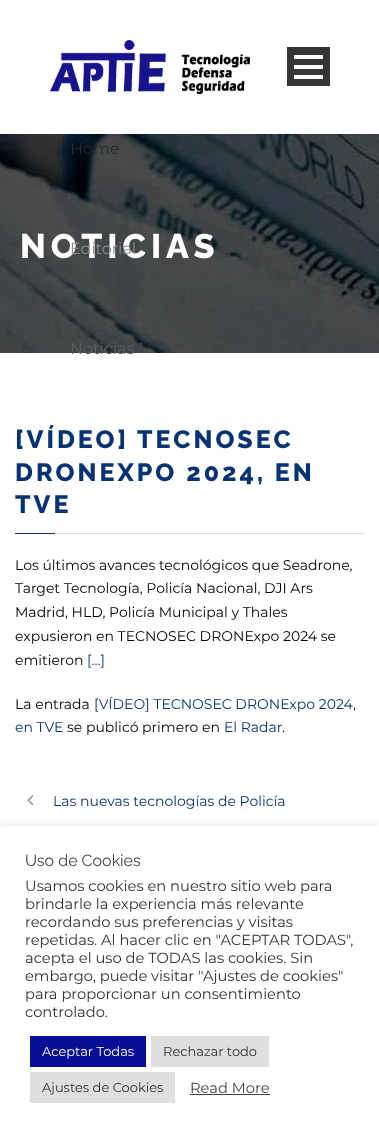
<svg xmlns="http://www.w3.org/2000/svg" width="379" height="1128">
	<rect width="100%" height="100%" fill="#FFFFFF" />
	<image x="50" y="40" width="200" height="54" href="assets/img1.png" />
	<rect x="287" y="47" width="43" height="39" fill="#353535" />
	<rect x="294" y="75" width="29" height="4" fill="#FFFFFF" />
	<rect x="294" y="65" width="29" height="4" fill="#FFFFFF" />
	<rect x="294" y="55" width="29" height="4" fill="#FFFFFF" />
	<image x="0" y="134" width="379" height="219" href="assets/img2.png" />
	<text x="70" y="154" font-family="Montserrat" font-size="16" fill="#242C32">Home</text>
	<text x="20" y="258" font-family="Raleway" font-size="34" font-weight="800" letter-spacing="5" fill="#FFFFFF">NOTICIAS</text>
	<text x="70" y="254" font-family="Montserrat" font-size="16" fill="#8C8E8F">Editorial</text>
	<text x="70" y="354" font-family="Montserrat" font-size="16" fill="#595D5F">Noticias</text>
	<rect x="55" y="533" width="309" height="1" fill="#DDDDDD" />
	<g font-family="Raleway" font-size="25" font-weight="800" letter-spacing="3" fill="#073375">
		<text x="15" y="448">[VÍDEO] TECNOSEC</text>
		<text x="15" y="481">DRONEXPO 2024, EN</text>
		<text x="15" y="513">TVE</text>
	</g>
	<rect x="15" y="533" width="40" height="1" fill="#073375" />
	<g font-family="Montserrat" font-size="14" fill="#000000">
		<text x="15" y="570">Los últimos avances tecnológicos que Seadrone,</text>
		<text x="15" y="593">Target Tecnología, Policía Nacional, DJI Ars</text>
		<text x="15" y="617">Madrid, HLD, Policía Municipal y Thales</text>
		<text x="15" y="641">expusieron en TECNOSEC DRONExpo 2024 se</text>
		<text x="15" y="665">emitieron</text>
	</g>
	<text x="87" y="665" font-family="Montserrat" font-size="14" fill="#073375">[…]</text>
	<text x="15" y="709" font-family="Montserrat" font-size="14" fill="#000000">La entrada</text>
	<g font-family="Montserrat" font-size="14" fill="#073375">
		<text x="94" y="709">[VÍDEO] TECNOSEC DRONExpo 2024,</text>
		<text x="15" y="732">en TVE</text>
	</g>
	<text x="67" y="732" font-family="Montserrat" font-size="14" fill="#000000">se publicó primero en</text>
	<text x="224" y="732" font-family="Montserrat" font-size="14" fill="#073375">El Radar</text>
	<text x="282" y="732" font-family="Montserrat" font-size="14" fill="#000000">.</text>
	<image x="27" y="795" width="7" height="11" href="assets/img3.png" />
	<text x="53" y="806" font-family="Montserrat" font-size="14" fill="#073375">Las nuevas tecnologías de Policía</text>
	<rect x="0" y="825" width="379" height="302" fill="#ACABAB" fill-opacity="0.3" filter="blur(5px)" />
	<rect x="0" y="826" width="379" height="302" fill="#FFFFFF" />
	<text x="25" y="866" font-family="Raleway" font-size="16" fill="#454545">Uso de Cookies</text>
	<g font-family="Montserrat" font-size="14.7" fill="#333333">
		<text x="25" y="891">Usamos cookies en nuestro sitio web para</text>
		<text x="25" y="909">brindarle la experiencia más relevante</text>
		<text x="25" y="927">recordando sus preferencias y visitas</text>
		<text x="25" y="945">repetidas. Al hacer clic en "ACEPTAR TODAS",</text>
		<text x="25" y="963">acepta el uso de TODAS las cookies. Sin</text>
		<text x="25" y="981">embargo, puede visitar "Ajustes de cookies"</text>
		<text x="25" y="999">para proporcionar un consentimiento</text>
		<text x="25" y="1017">controlado.</text>
	</g>
	<rect x="30" y="1036" width="116" height="31" fill="#080E96" />
	<text x="42" y="1056" font-family="Montserrat" font-size="13" fill="#FFFFFF">Aceptar Todas</text>
	<rect x="151" y="1036" width="118" height="31" fill="#DEDFE0" />
	<text x="163" y="1056" font-family="Montserrat" font-size="13" fill="#333333">Rechazar todo</text>
	<rect x="30" y="1072" width="145" height="31" fill="#DEDFE0" />
	<text x="42" y="1092" font-family="Montserrat" font-size="13" fill="#333333">Ajustes de Cookies</text>
	<text x="190" y="1093" font-family="Montserrat" font-size="14.7" fill="#454545">Read More</text>
	<rect x="190" y="1094" width="80" height="1" fill="#444444" />
</svg>
